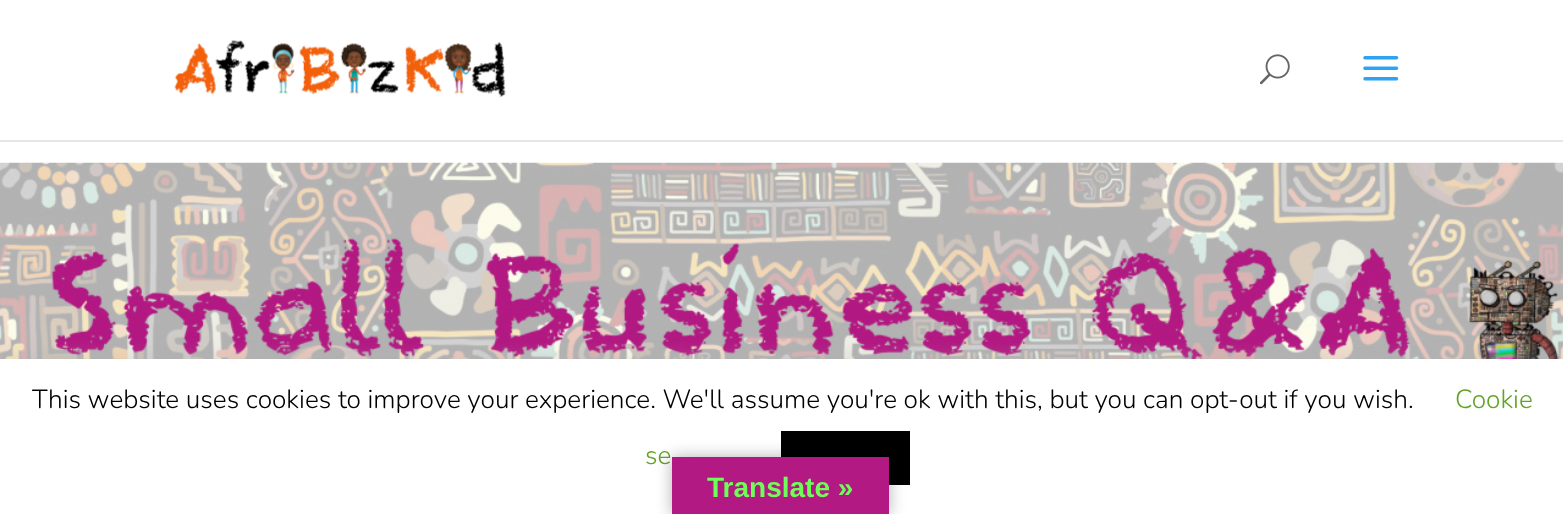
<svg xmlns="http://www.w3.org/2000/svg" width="1563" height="514">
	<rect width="100%" height="100%" fill="#FFFFFF" />
	<path d="M0 140V142H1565V2H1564V140Z" fill="#E6E6E6" />
	<image x="174" y="40" width="332" height="57" href="assets/img1.png" />
	<image x="1259" y="54" width="31" height="31" href="assets/img2.png" />
	<image x="1363" y="56" width="36" height="25" href="assets/img3.png" />
	<image x="0" y="162" width="1563" height="197" href="assets/img4.png" />
	<rect x="0" y="357" width="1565" height="156" fill="#ACABAB" fill-opacity="0.3" filter="blur(9px)" />
	<rect x="0" y="359" width="1563" height="155" fill="#FFFFFF" />
	<text x="32" y="408" font-family="Nunito" font-size="26.25" font-weight="300" fill="#000000">This website uses cookies to improve your experience. We'll assume you're ok with this, but you can opt-out if you wish.</text>
	<g font-family="Nunito" font-size="26.25" font-weight="300" fill="#62A329">
		<text x="1455" y="408">Cookie</text>
		<text x="645" y="464">se</text>
	</g>
	<rect x="781" y="431" width="129" height="54" fill="#000000" />
	<rect x="672" y="457" width="217" height="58" fill="#000000" fill-opacity="0.3" filter="blur(8px)" />
	<rect x="672" y="457" width="217" height="57" fill="#B31983" />
	<text x="707" y="497" font-family="Liberation Sans" font-size="28" font-weight="700" fill="#6DFF57">Translate »</text>
</svg>
